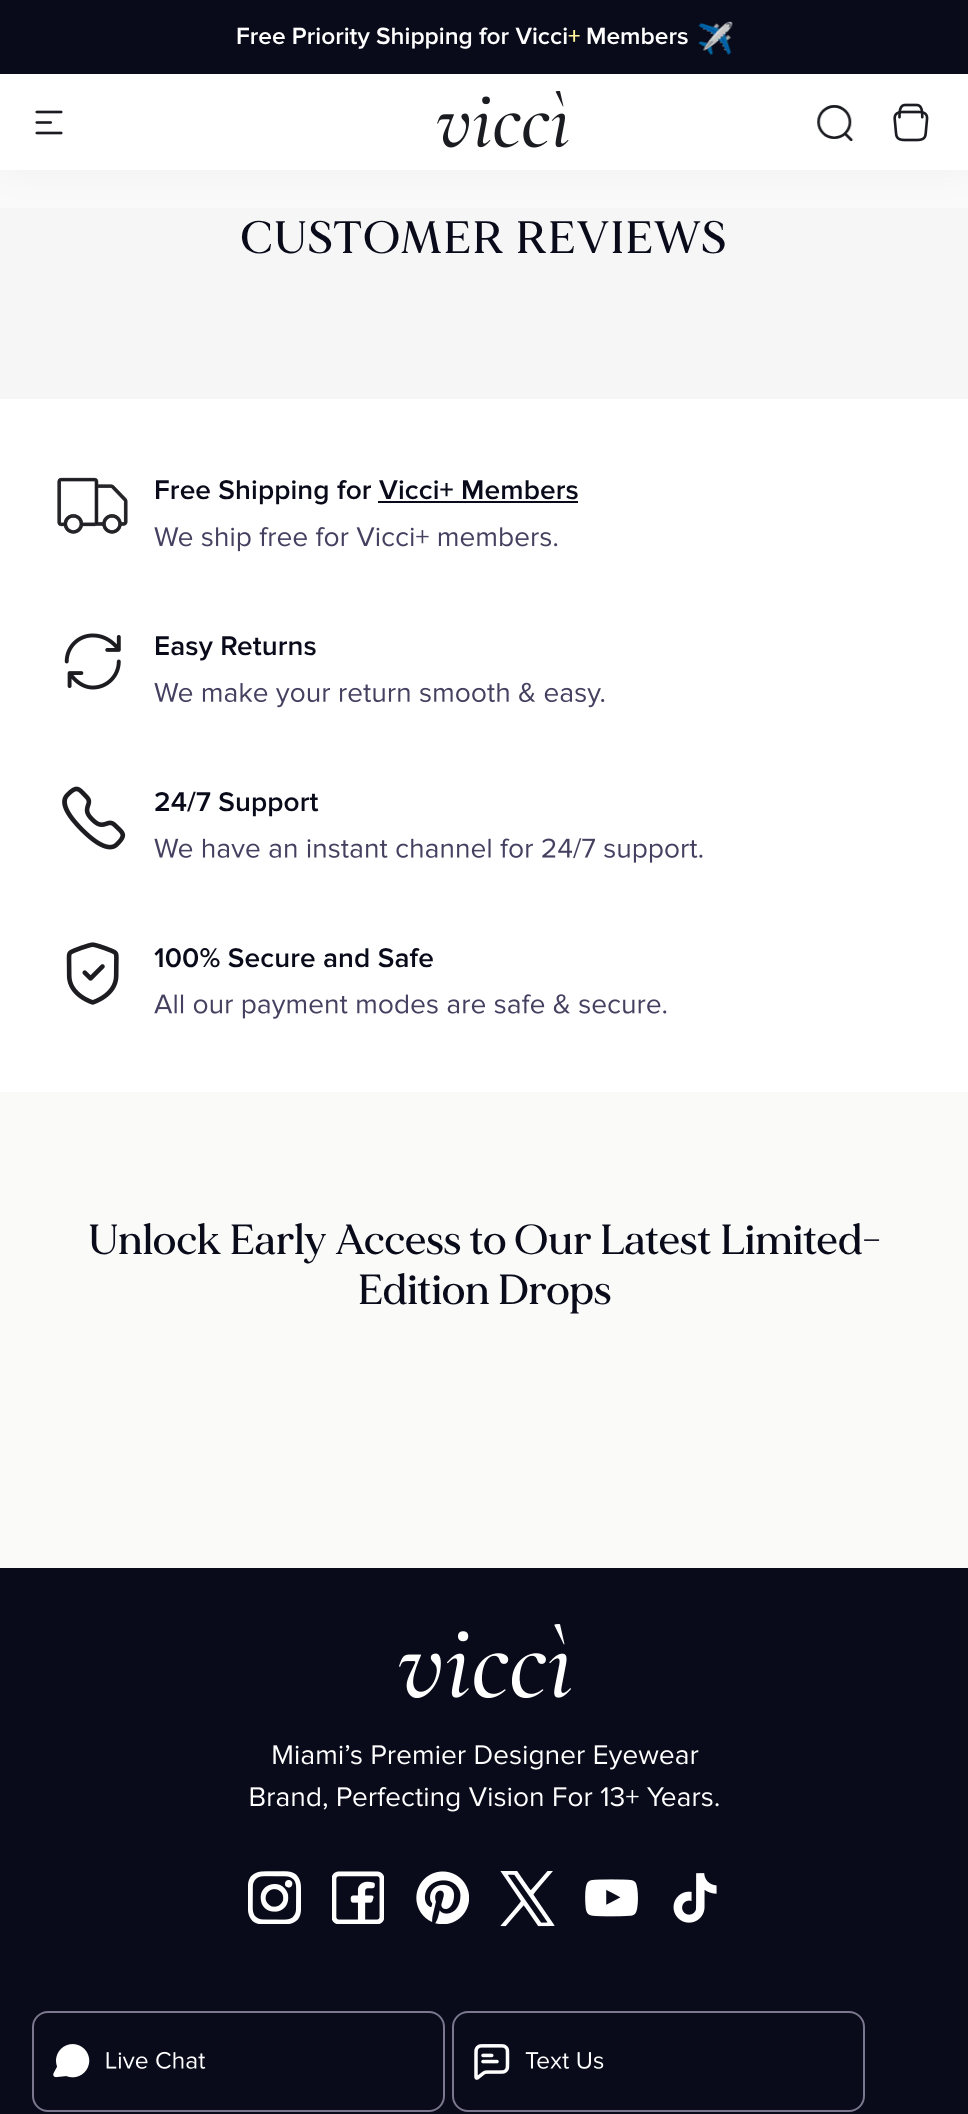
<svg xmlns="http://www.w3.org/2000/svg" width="968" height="2114">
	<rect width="100%" height="100%" fill="#FFFFFF" />
	<rect x="0" y="170" width="968" height="38" fill="#FAFAFA" />
	<rect x="0" y="208" width="968" height="191" fill="#F6F6F6" />
	<rect x="0" y="2" width="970" height="170" fill="#000000" fill-opacity="0.04" filter="blur(17.5px)" />
	<rect x="0" y="0" width="968" height="74" fill="#090B1A" />
	<text x="236" y="44" font-family="Proxima Nova" font-size="24.5" font-weight="600" fill="#FFFFFF">Free Priority Shipping for Vicci</text>
	<text x="568" y="44" font-family="Proxima Nova" font-size="24.5" font-weight="600" fill="#FFF49B">+</text>
	<text x="586" y="44" font-family="Proxima Nova" font-size="24.5" font-weight="600" fill="#FFFFFF">Members</text>
	<image x="698" y="21" width="35" height="34" href="assets/img1.png" />
	<rect x="0" y="74" width="968" height="96" fill="#FFFFFF" />
	<image x="35" y="110" width="28" height="25" href="assets/img2.png" />
	<image x="437" y="91" width="132" height="57" href="assets/img3.png" />
	<image x="817" y="105" width="37" height="37" href="assets/img4.png" />
	<image x="893" y="103" width="36" height="39" href="assets/img5.png" />
	<text x="241" y="253" font-family="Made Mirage" font-size="45.5" font-weight="500" letter-spacing="1.8" fill="#090B1A">CUSTOMER REVIEWS</text>
	<image x="57" y="477" width="71" height="57" href="assets/img6.png" />
	<text x="154" y="499" font-family="Proxima Nova" font-size="28" font-weight="600" letter-spacing="0.1" fill="#090B1A">Free Shipping for Vicci+ Members</text>
	<rect x="378" y="501" width="200" height="2" fill="#090B1A" />
	<image x="154" y="527" width="404" height="25" href="assets/img7.png" />
	<image x="64" y="633" width="57" height="57" href="assets/img8.png" />
	<text x="154" y="655" font-family="Proxima Nova" font-size="28" font-weight="600" letter-spacing="0.1" fill="#090B1A">Easy Returns</text>
	<image x="154" y="682" width="451" height="26" href="assets/img9.png" />
	<image x="62" y="786" width="64" height="64" href="assets/img10.png" />
	<text x="154" y="811" font-family="Proxima Nova" font-size="28" font-weight="600" letter-spacing="0.1" fill="#090B1A">24/7 Support</text>
	<image x="154" y="838" width="549" height="25" href="assets/img11.png" />
	<image x="66" y="942" width="53" height="63" href="assets/img12.png" />
	<text x="154" y="967" font-family="Proxima Nova" font-size="28" font-weight="600" letter-spacing="0.1" fill="#090B1A">100% Secure and Safe</text>
	<image x="154" y="994" width="513" height="25" href="assets/img13.png" />
	<rect x="0" y="1092" width="968" height="476" fill="#FAFAF9" />
	<g font-family="Made Mirage" font-size="42" font-weight="500" letter-spacing="0.1" fill="#090B1A">
		<text x="88" y="1254">Unlock Early Access to Our Latest Limited-</text>
		<text x="358" y="1304">Edition Drops</text>
	</g>
	<rect x="0" y="1568" width="968" height="546" fill="#090B1A" />
	<image x="399" y="1624" width="172" height="74" href="assets/img14.png" />
	<image x="273" y="1745" width="426" height="25" href="assets/img15.png" />
	<image x="250" y="1787" width="469" height="25" href="assets/img16.png" />
	<image x="248" y="1871" width="53" height="53" href="assets/img17.png" />
	<image x="332" y="1871" width="52" height="53" href="assets/img18.png" />
	<image x="416" y="1871" width="53" height="53" href="assets/img19.png" />
	<image x="500" y="1871" width="55" height="56" href="assets/img20.png" />
	<image x="585" y="1879" width="53" height="38" href="assets/img21.png" />
	<image x="673" y="1873" width="44" height="50" href="assets/img22.png" />
	<rect x="33" y="2012" width="411" height="99" rx="15" fill="none" stroke="#7A778E" stroke-width="2" />
	<image x="53" y="2044" width="37" height="34" href="assets/img23.png" />
	<image x="106" y="2051" width="100" height="18" href="assets/img24.png" />
	<rect x="453" y="2012" width="411" height="99" rx="15" fill="none" stroke="#7A778E" stroke-width="2" />
	<image x="474" y="2044" width="36" height="36" href="assets/img25.png" />
	<image x="525" y="2052" width="79" height="17" href="assets/img26.png" />
</svg>
